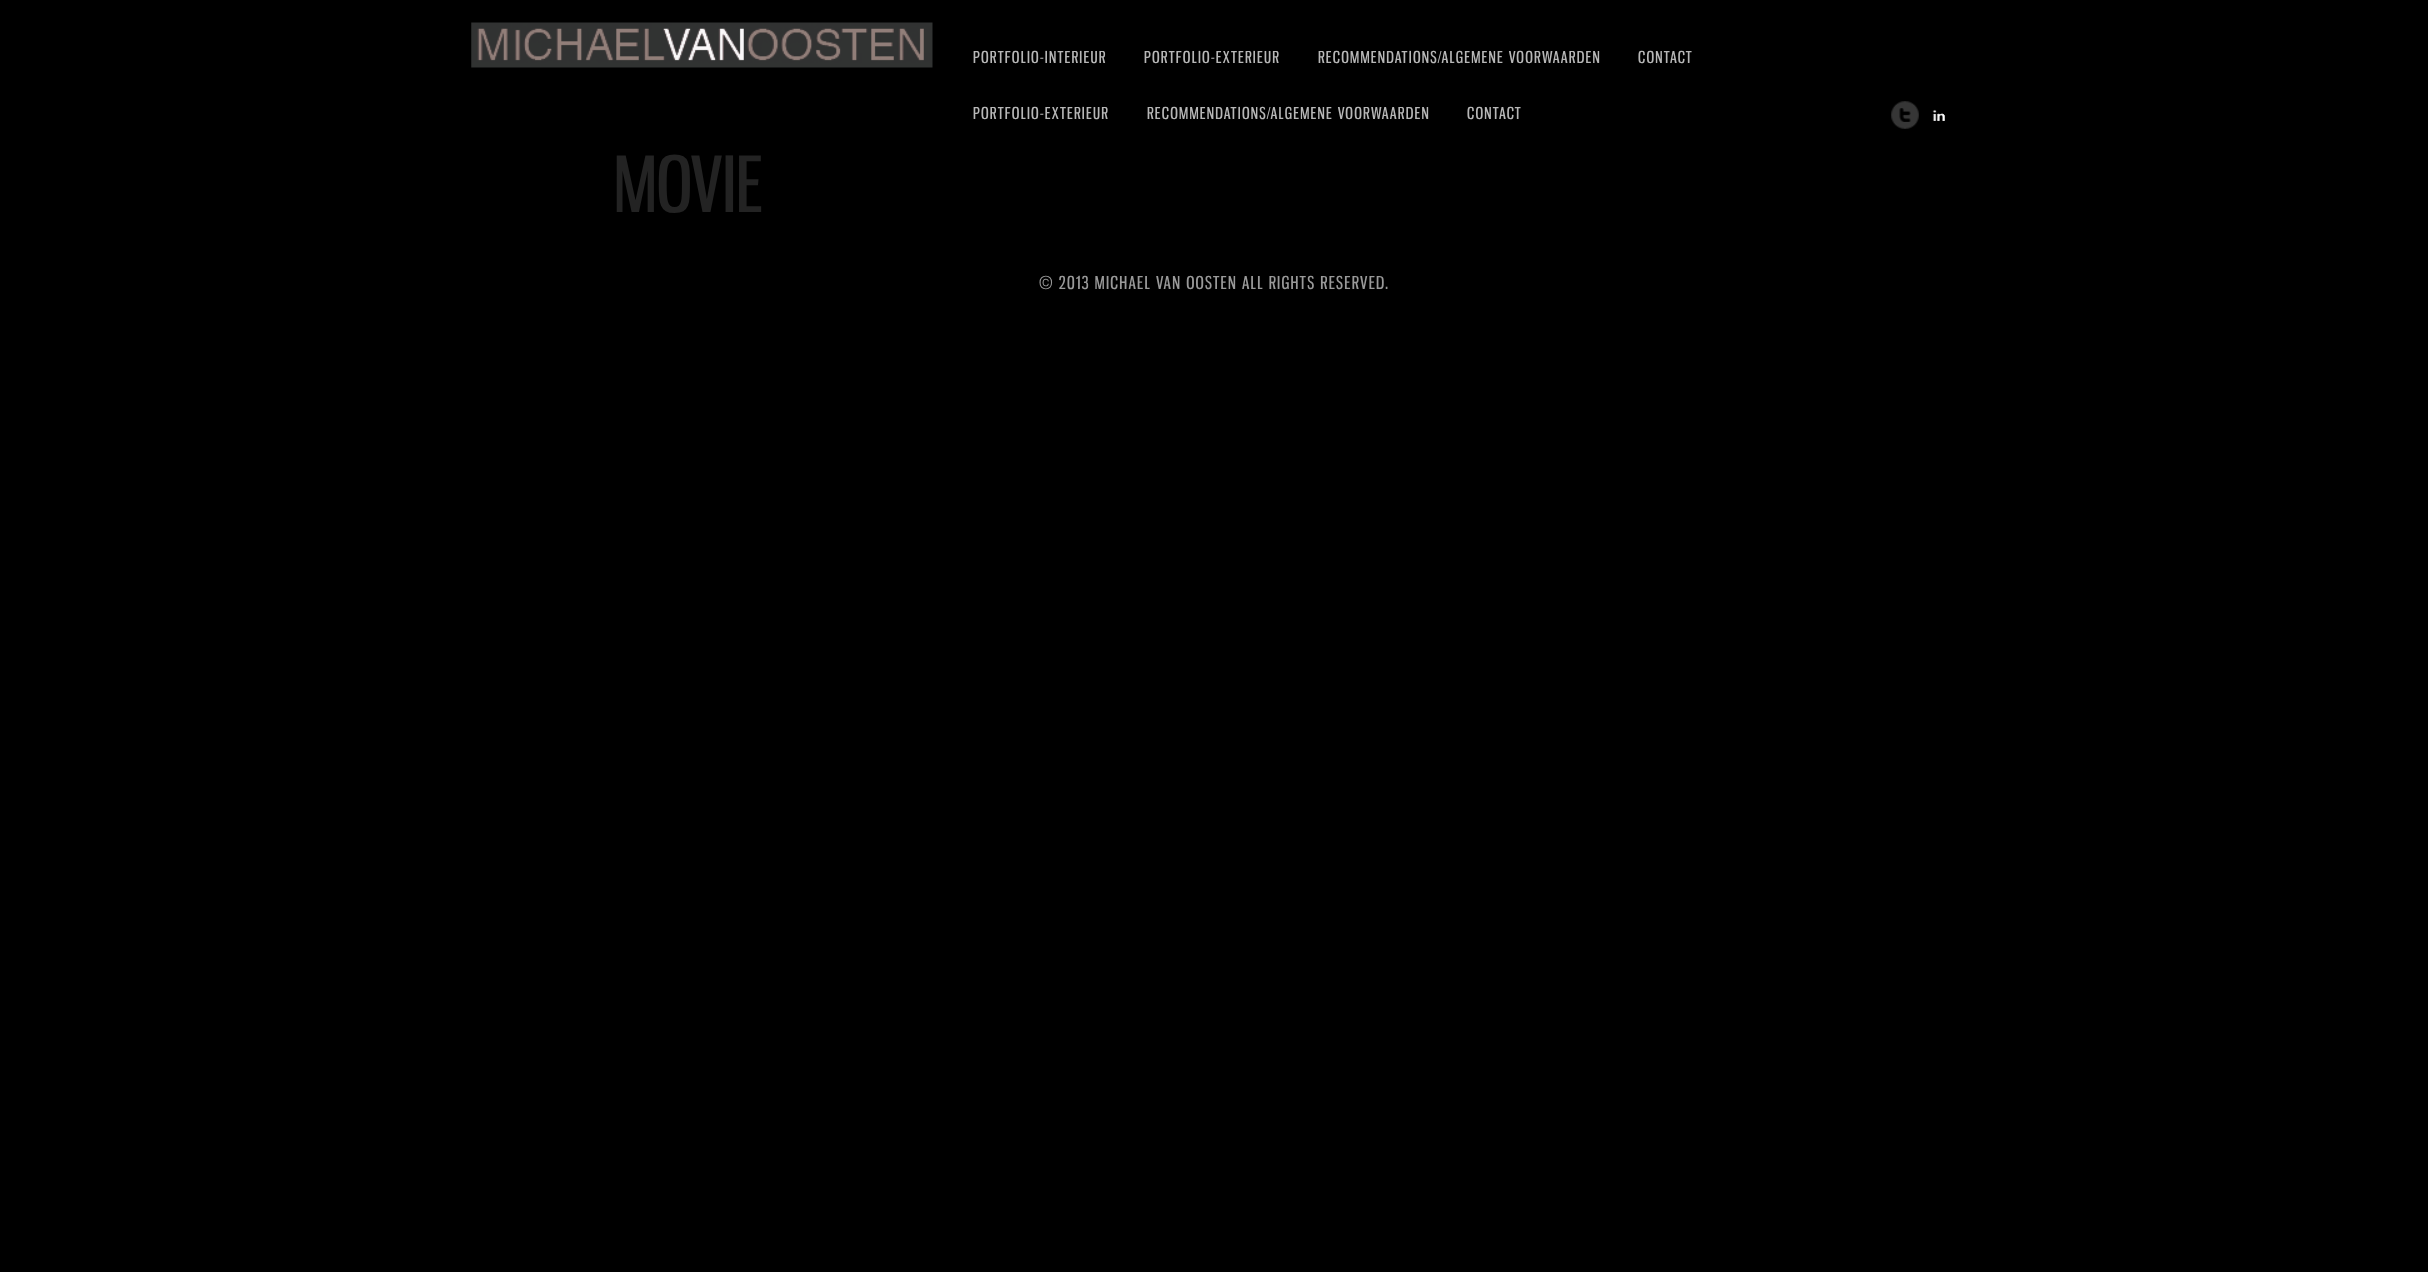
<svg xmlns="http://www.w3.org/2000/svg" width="2428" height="1272">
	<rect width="100%" height="100%" fill="#000000" />
	<image x="471" y="22" width="462" height="46" href="assets/img1.png" />
	<g font-family="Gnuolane" font-size="16.25" letter-spacing="1.25" fill="#B7B7B7">
		<text x="973" y="63">PORTFOLIO-INTERIEUR</text>
		<text x="1144" y="63">PORTFOLIO-EXTERIEUR</text>
		<text x="1318" y="63">RECOMMENDATIONS/ALGEMENE VOORWAARDEN</text>
		<text x="1638" y="63">CONTACT</text>
		<text x="973" y="119">PORTFOLIO-EXTERIEUR</text>
		<text x="1147" y="119">RECOMMENDATIONS/ALGEMENE VOORWAARDEN</text>
		<text x="1467" y="119">CONTACT</text>
	</g>
	<image x="1891" y="101" width="28" height="28" href="assets/img2.png" />
	<image x="1932" y="109" width="13" height="12" href="assets/img3.png" />
	<text x="614" y="212" font-family="Gnuolane" font-size="76" fill="#232323">MOVIE</text>
	<text x="1039" y="289" font-family="Gnuolane" font-size="17.5" letter-spacing="1.25" fill="#999999">© 2013 MICHAEL VAN OOSTEN ALL RIGHTS RESERVED.</text>
</svg>
